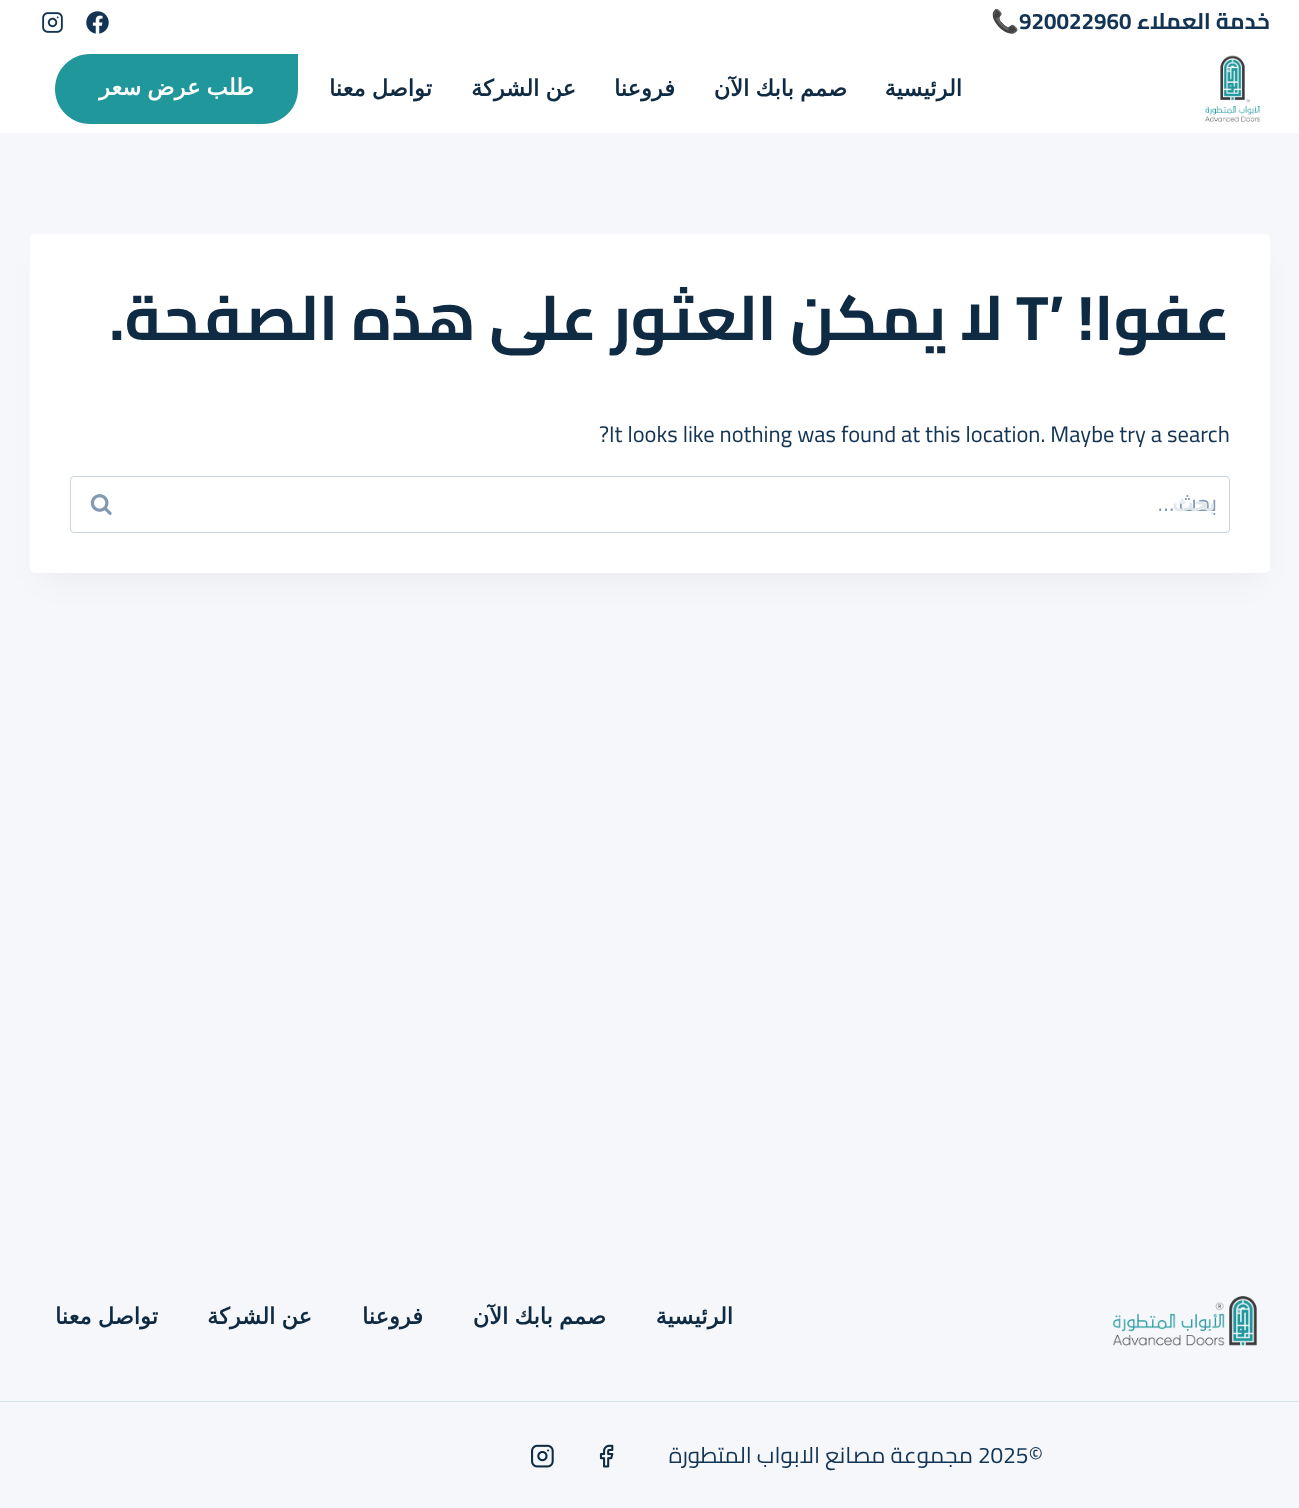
<svg xmlns="http://www.w3.org/2000/svg" width="1299" height="1508">
	<rect width="100%" height="100%" fill="#F5F7FA" />
	<rect x="0" y="0" width="1299" height="133" fill="#FFFFFF" />
	<text x="1270" y="29" font-family="Cairo" font-size="22.5" font-weight="700" direction="rtl" fill="#133453">خدمة العملاء</text>
	<text x="1019" y="29" font-family="Cairo" font-size="22.5" font-weight="700" fill="#133453">920022960</text>
	<text x="991" y="29" font-family="Noto Color Emoji" font-size="22.5" font-weight="700" fill="#133453">📞</text>
	<image x="86" y="11" width="23" height="23" href="assets/img1.png" />
	<image x="42" y="12" width="21" height="21" href="assets/img2.png" />
	<image x="1204" y="55" width="57" height="67" href="assets/img3.png" />
	<g font-family="DejaVu Sans" font-size="22.5" font-weight="700" direction="rtl" fill="#0F2A43">
		<text x="962" y="96">الرئيسية</text>
		<text x="847" y="96" word-spacing="-1">صمم بابك الآن</text>
		<text x="675" y="96">فروعنا</text>
		<text x="576" y="96" word-spacing="-1">عن الشركة</text>
		<text x="432" y="96" word-spacing="-1">تواصل معنا</text>
	</g>
	<path d="M90 54H298V89C298 108.5 282.5 124 263 124H90C70.5 124 55 108.5 55 89C55 69.5 70.5 54 90 54Z" fill="#20979B" />
	<text x="254" y="95" word-spacing="-1" font-family="DejaVu Sans" font-size="22.5" font-weight="700" direction="rtl" fill="#FFFFFF">طلب عرض سعر</text>
	<rect x="43" y="265" width="1215" height="314" fill="#000000" fill-opacity="0.05" filter="blur(15.5px)" />
	<rect x="30" y="234" width="1240" height="339" rx="5" fill="#FFFFFF" />
	<text x="1230" y="340" font-family="Cairo" font-size="62.5" font-weight="700" direction="rtl" fill="#0F2A43">عفوا! ’</text>
	<text x="1016" y="340" font-family="Cairo" font-size="62.5" font-weight="700" fill="#0F2A43">T</text>
	<text x="1003" y="340" font-family="Cairo" font-size="62.5" font-weight="700" direction="rtl" fill="#0F2A43">لا يمكن العثور على هذه الصفحة.</text>
	<text x="599" y="442" font-family="Cairo" font-size="22.5" fill="#133453">?It looks like nothing was found at this location. Maybe try a search</text>
	<rect x="70.5" y="476.5" width="1159" height="56" rx="3.5" fill="none" stroke="#CBD5E0" />
	<text x="1217" y="511" font-family="Cairo" font-size="22.5" direction="rtl" fill="#829AB1">بحث …</text>
	<image x="90" y="494" width="22" height="21" href="assets/img4.png" />
	<text x="1215" y="511" font-family="DejaVu Sans" font-size="22.5" font-weight="700" direction="rtl" fill="#E1E7ED">بحث</text>
	<image x="1113" y="1296" width="144" height="50" href="assets/img5.png" />
	<g font-family="DejaVu Sans" font-size="22.5" font-weight="700" direction="rtl" fill="#0F2A43">
		<text x="733" y="1324">الرئيسية</text>
		<text x="606" y="1324" word-spacing="-1">صمم بابك الآن</text>
		<text x="423" y="1324">فروعنا</text>
		<text x="312" y="1324" word-spacing="-1">عن الشركة</text>
		<text x="158" y="1324" word-spacing="-1">تواصل معنا</text>
	</g>
	<rect x="0" y="1401" width="1299" height="1" fill="#D2E8EB" />
	<text x="978" y="1463" font-family="Cairo" font-size="22.5" fill="#133453">2025©</text>
	<text x="973" y="1463" font-family="Cairo" font-size="22.5" direction="rtl" fill="#133453">مجموعة مصانع الابواب المتطورة</text>
	<image x="599" y="1444" width="15" height="24" href="assets/img6.png" />
	<image x="531" y="1444" width="23" height="24" href="assets/img7.png" />
</svg>
